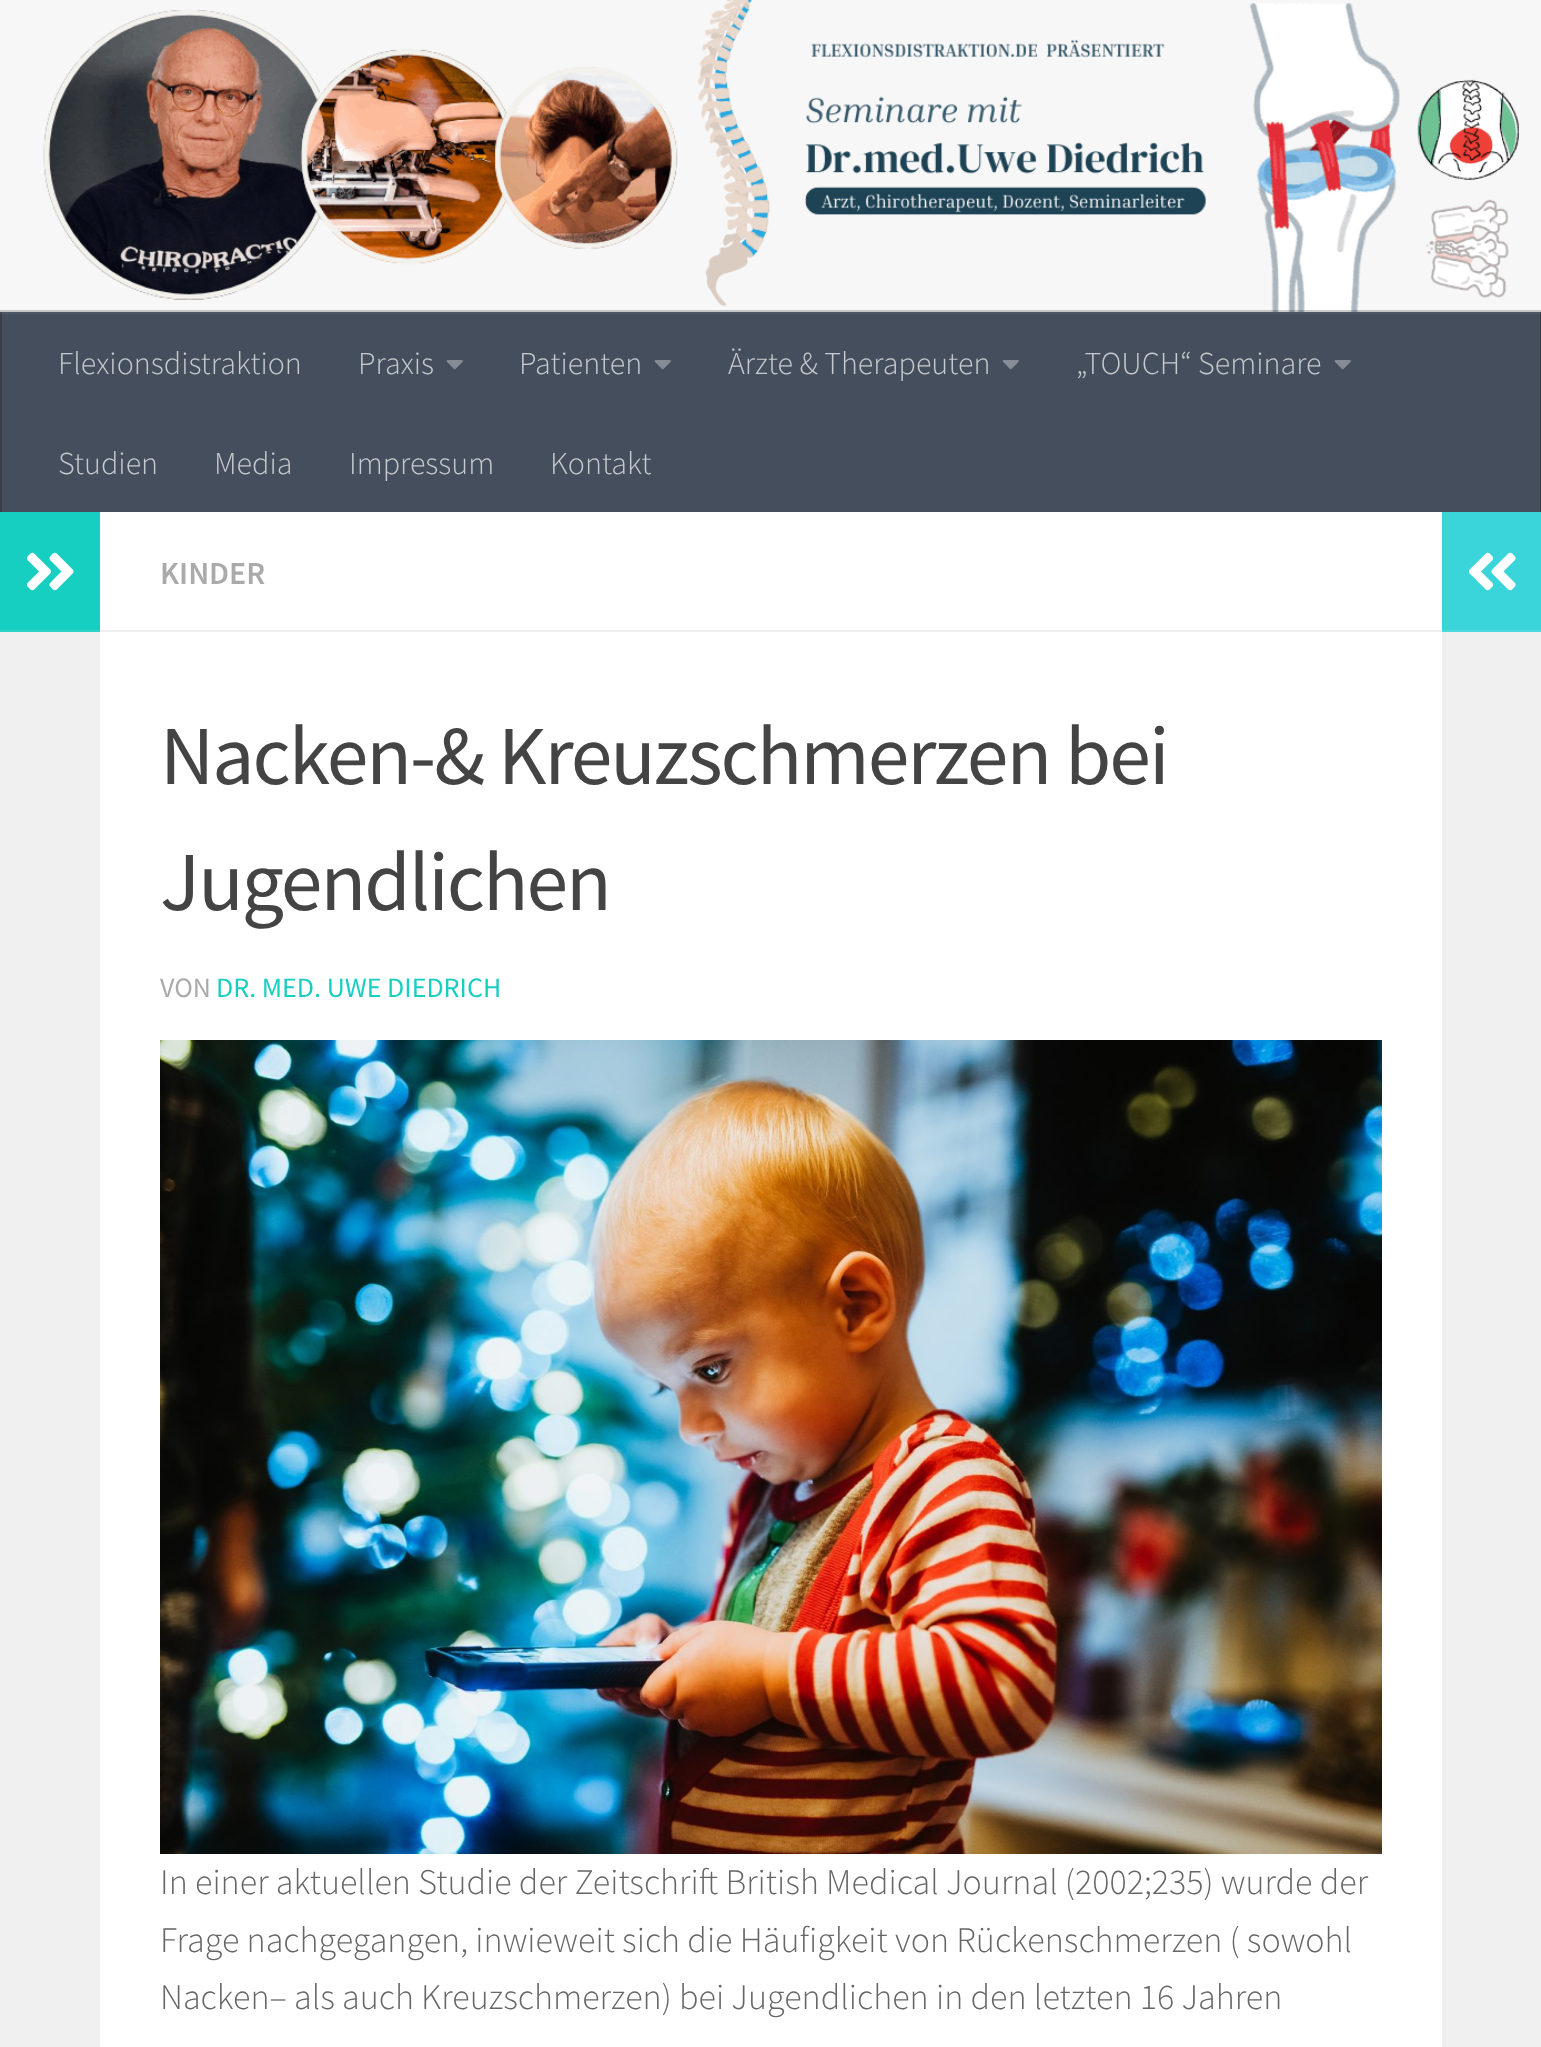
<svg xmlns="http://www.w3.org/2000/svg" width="1541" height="2047">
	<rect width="100%" height="100%" fill="#454E5C" />
	<rect x="0" y="312" width="1541" height="2" fill="#4E5764" />
	<image x="0" y="0" width="1541" height="312" href="assets/img1.png" />
	<rect x="0" y="310" width="1541" height="2" fill="#000000" fill-opacity="0.2" />
	<rect x="1540" y="312" width="1" height="200" fill="#373E4A" />
	<rect x="1540" y="312" width="1" height="2" fill="#414853" />
	<rect x="0" y="312" width="2" height="200" fill="#373E4A" />
	<rect x="0" y="312" width="2" height="2" fill="#414853" />
	<g font-family="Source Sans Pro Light" font-size="32" font-weight="300" fill="#C7CACE">
		<text x="58" y="374">Flexionsdistraktion</text>
		<text x="358" y="374">Praxis</text>
	</g>
	<image x="446" y="360" width="17" height="10" href="assets/img2.png" />
	<text x="519" y="374" font-family="Source Sans Pro Light" font-size="32" font-weight="300" fill="#C7CACE">Patienten</text>
	<image x="654" y="360" width="17" height="10" href="assets/img2.png" />
	<text x="728" y="374" font-family="Source Sans Pro Light" font-size="32" font-weight="300" fill="#C7CACE">Ärzte &amp; Therapeuten</text>
	<image x="1002" y="360" width="17" height="10" href="assets/img2.png" />
	<text x="1076" y="374" font-family="Source Sans Pro Light" font-size="32" font-weight="300" fill="#C7CACE">„TOUCH“ Seminare</text>
	<image x="1334" y="360" width="17" height="10" href="assets/img2.png" />
	<g font-family="Source Sans Pro Light" font-size="32" font-weight="300" fill="#C7CACE">
		<text x="58" y="474">Studien</text>
		<text x="214" y="474">Media</text>
		<text x="349" y="474">Impressum</text>
		<text x="550" y="474">Kontakt</text>
	</g>
	<rect x="100" y="512" width="1342" height="1535" fill="#FFFFFF" />
	<rect x="0" y="632" width="100" height="1415" fill="#F0F0F0" />
	<rect x="0" y="512" width="100" height="118" fill="#16CFC1" />
	<rect x="0" y="630" width="100" height="2" fill="#2DD4C7" />
	<image x="26" y="552" width="48" height="39" href="assets/img3.png" />
	<rect x="100" y="630" width="1342" height="2" fill="#EEEEEE" />
	<text x="160" y="584" font-family="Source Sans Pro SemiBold" font-size="32" font-weight="600" fill="#AAAAAA">KINDER</text>
	<g font-family="Source Sans Pro" font-size="83.8" letter-spacing="-2" fill="#444444">
		<text x="160" y="784">Nacken-&amp; Kreuzschmerzen bei</text>
		<text x="160" y="910">Jugendlichen</text>
	</g>
	<text x="160" y="997" font-family="Source Sans Pro" font-size="28" fill="#AAAAAA">VON</text>
	<text x="216" y="997" font-family="Source Sans Pro" font-size="28" fill="#16CFC1">DR. MED. UWE DIEDRICH</text>
	<image x="160" y="1040" width="1222" height="814" href="assets/img4.png" />
	<g font-family="Source Sans Pro Light" font-size="36" font-weight="300" fill="#666666">
		<text x="160" y="1894">In einer aktuellen Studie der Zeitschrift British Medical Journal (2002;235) wurde der</text>
		<text x="160" y="1952">Frage nachgegangen, inwieweit sich die Häufigkeit von Rückenschmerzen ( sowohl</text>
		<text x="160" y="2009">Nacken– als auch Kreuzschmerzen) bei Jugendlichen in den letzten 16 Jahren</text>
	</g>
	<rect x="1442" y="512" width="99" height="118" fill="#39D5DB" />
	<rect x="1442" y="630" width="99" height="2" fill="#4DD9DF" />
	<image x="1468" y="552" width="48" height="39" href="assets/img5.png" />
	<rect x="1442" y="632" width="99" height="1415" fill="#F0F0F0" />
</svg>
